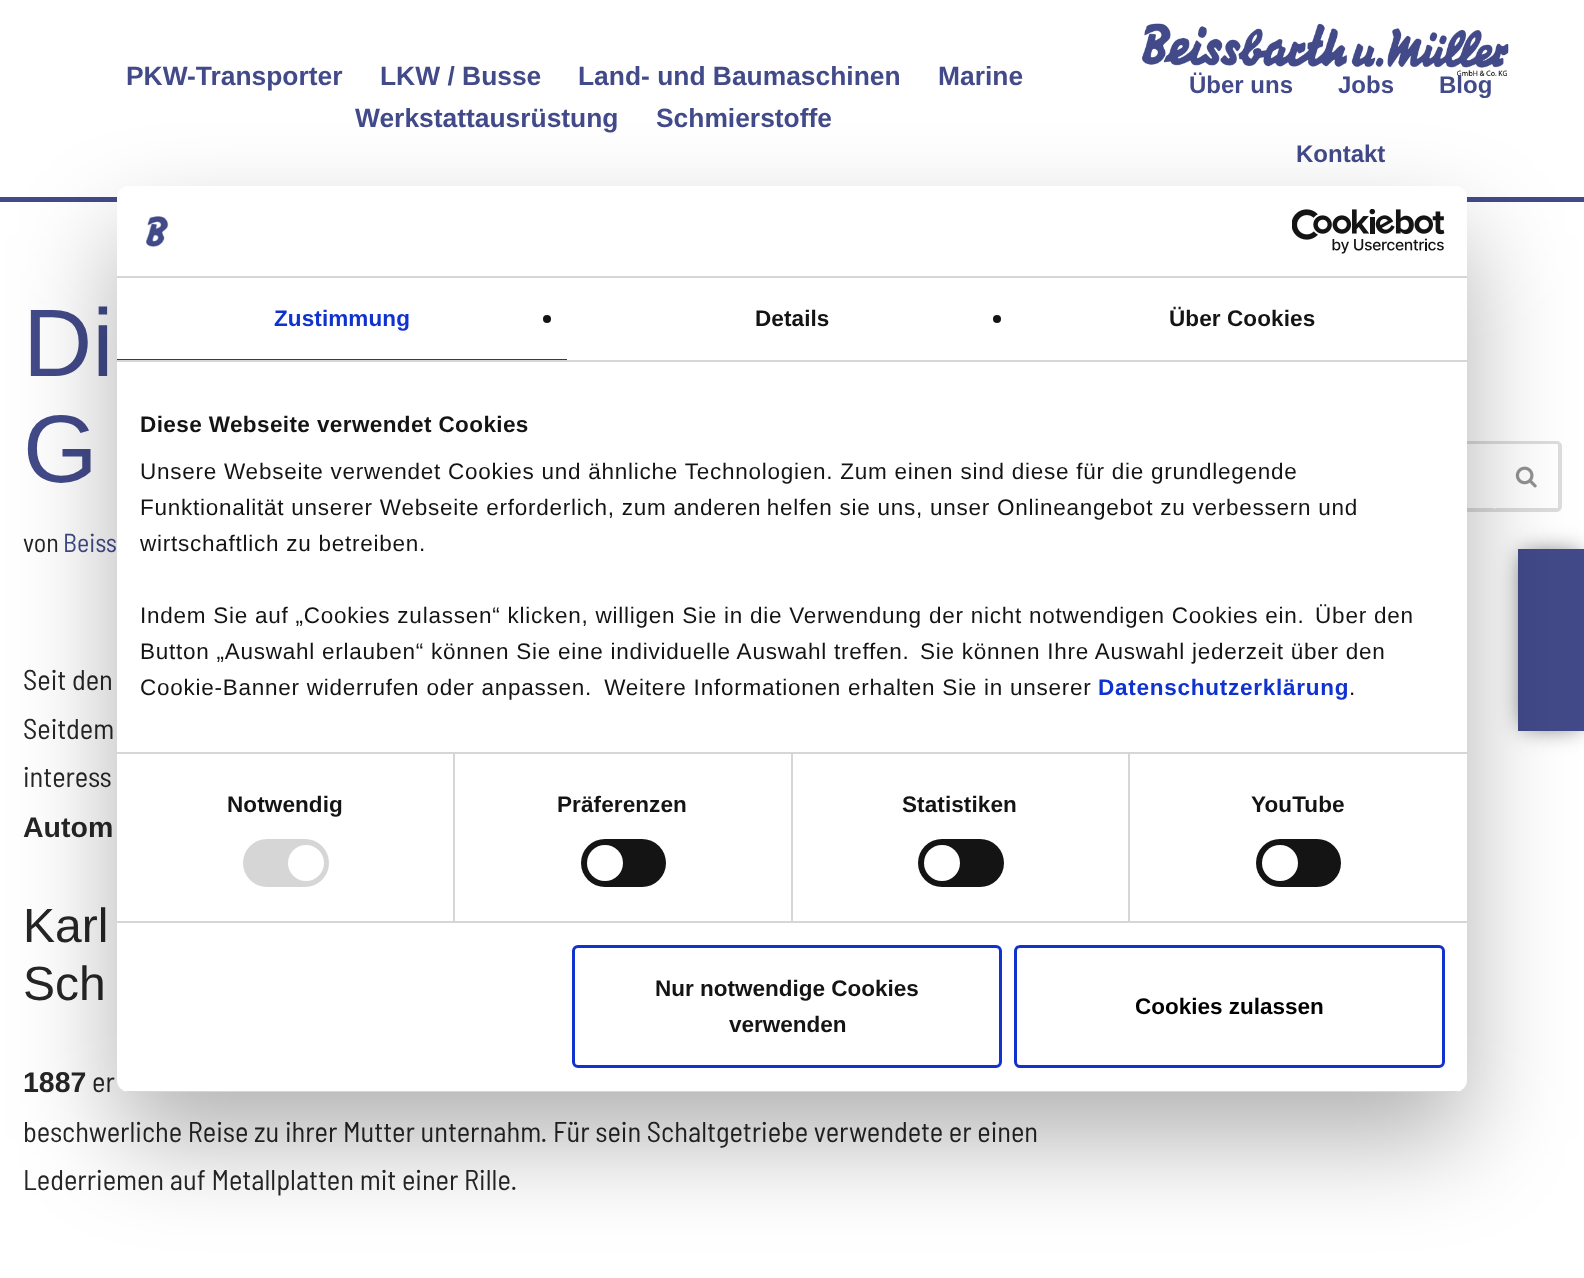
<svg xmlns="http://www.w3.org/2000/svg" width="1584" height="1278">
	<defs>
		<clipPath id="clip1"><rect x="117" y="186" width="1350" height="906" rx="12" /></clipPath>
	</defs>
	<rect width="100%" height="100%" fill="#FFFFFF" />
	<rect x="0" y="197" width="1584" height="5" fill="#424A89" />
	<g font-family="Liberation Sans" font-size="26.4" font-weight="700" fill="#424A89">
		<text x="126" y="85">PKW-Transporter</text>
		<text x="380" y="85">LKW / Busse</text>
		<text x="578" y="85">Land- und Baumaschinen</text>
		<text x="938" y="85">Marine</text>
		<text x="355" y="127">Werkstattausrüstung</text>
		<text x="656" y="127">Schmierstoffe</text>
	</g>
	<image x="1142" y="23" width="367" height="53" href="assets/img1.png" />
	<g font-family="Liberation Sans" font-size="24" font-weight="700" fill="#424A89">
		<text x="1189" y="93">Über uns</text>
		<text x="1338" y="93">Jobs</text>
		<text x="1439" y="93">Blog</text>
		<text x="1296" y="162">Kontakt</text>
	</g>
	<g font-family="Liberation Sans" font-size="96" fill="#424A89">
		<text x="23" y="376">Di</text>
		<text x="23" y="482">G</text>
	</g>
	<text x="23" y="552" font-family="Barlow Semi Condensed" font-size="26" fill="#272626">von</text>
	<text x="63" y="552" font-family="Barlow Semi Condensed" font-size="26" fill="#424A89">Beiss</text>
	<g font-family="Barlow Semi Condensed" font-size="28.5" fill="#272626">
		<text x="23" y="690">Seit den</text>
		<text x="23" y="739">Seitdem</text>
		<text x="23" y="787">interess</text>
	</g>
	<text x="23" y="837" font-family="Liberation Sans" font-size="28.5" font-weight="700" fill="#272626">Autom</text>
	<g font-family="Liberation Sans" font-size="48" fill="#272626">
		<text x="23" y="942">Karl</text>
		<text x="23" y="1000">Sch</text>
	</g>
	<text x="23" y="1092" font-family="Liberation Sans" font-size="28.5" font-weight="700" fill="#272626">1887</text>
	<g font-family="Barlow Semi Condensed" font-size="28.5" fill="#272626">
		<text x="92" y="1092">er</text>
		<text x="23" y="1142">beschwerliche Reise zu ihrer Mutter unternahm. Für sein Schaltgetriebe verwendete er einen</text>
		<text x="23" y="1190">Lederriemen auf Metallplatten mit einer Rille.</text>
	</g>
	<path d="M1180 441H1494V512H1180C1178 512 1176 509 1176 507V446C1176 443 1178 441 1180 441ZM1180 444H1494V508H1180C1180 508 1179 508 1179 507V446C1179 445 1180 444 1180 444Z" fill="#DDDDDD" fill-rule="evenodd" />
	<path d="M1494 441H1557C1559 441 1562 443 1562 446V507C1562 509 1559 512 1557 512H1494ZM1494 444H1557C1558 444 1558 445 1558 446V507C1558 508 1558 508 1557 508H1494Z" fill="#DDDDDD" fill-rule="evenodd" />
	<image x="1515" y="466" width="22" height="22" href="assets/img2.png" />
	<rect x="1494" y="508" width="1" height="1" fill="#FFFFFF" />
	<rect x="1523" y="554" width="57" height="172" fill="#333333" fill-opacity="0.78" filter="blur(12px)" />
	<rect x="1518" y="549" width="66" height="182" fill="#424A89" />
	<rect x="117" y="234" width="1350" height="906" rx="12" fill="#000000" fill-opacity="0.3" filter="blur(51px)" />
	<rect x="117" y="186" width="1350" height="906" rx="12" fill="#FFFFFF" />
	<rect x="117" y="276" width="1350" height="2" fill="#D6D6D6" />
	<image x="146" y="216" width="23" height="32" href="assets/img3.png" />
	<image x="1292" y="209" width="153" height="45" href="assets/img4.png" />
	<rect x="117" y="360" width="1350" height="2" fill="#D6D6D6" />
	<rect x="117" y="359" width="450" height="1" fill="#1032CF" />
	<text x="274" y="326" font-family="Liberation Sans" font-size="22.5" font-weight="700" letter-spacing="0.1" fill="#1032CF">Zustimmung</text>
	<circle cx="547" cy="319" r="4" fill="#141414" />
	<text x="755" y="326" font-family="Liberation Sans" font-size="22.5" font-weight="700" letter-spacing="0.1" fill="#141414">Details</text>
	<circle cx="997" cy="319" r="4" fill="#141414" />
	<text x="1169" y="326" font-family="Liberation Sans" font-size="22.5" font-weight="700" letter-spacing="0.1" fill="#141414">Über Cookies</text>
	<rect x="453" y="753" width="2" height="168" fill="#D6D6D6" />
	<rect x="791" y="753" width="2" height="168" fill="#D6D6D6" />
	<rect x="1128" y="753" width="2" height="168" fill="#D6D6D6" />
	<rect x="117" y="752" width="1350" height="2" fill="#D6D6D6" />
	<text x="140" y="432" font-family="Liberation Sans" font-size="22.5" font-weight="700" letter-spacing="0.4" fill="#141414">Diese Webseite verwendet Cookies</text>
	<g font-family="Liberation Sans" font-size="22.5" letter-spacing="0.75" fill="#141414">
		<text x="140" y="479">Unsere Webseite verwendet Cookies und ähnliche Technologien. Zum einen sind diese für die grundlegende</text>
		<text x="140" y="515">Funktionalität unserer Webseite erforderlich, zum anderen helfen sie uns, unser Onlineangebot zu verbessern und</text>
		<text x="140" y="551">wirtschaftlich zu betreiben.</text>
		<text x="140" y="623">Indem Sie auf „Cookies zulassen“ klicken, willigen Sie in die Verwendung der nicht notwendigen Cookies ein.  Über den</text>
		<text x="140" y="659">Button „Auswahl erlauben“ können Sie eine individuelle Auswahl treffen.  Sie können Ihre Auswahl jederzeit über den</text>
		<text x="140" y="695">Cookie-Banner widerrufen oder anpassen.  Weitere Informationen erhalten Sie in unserer</text>
	</g>
	<text x="1098" y="695" font-family="Liberation Sans" font-size="22.5" font-weight="700" letter-spacing="0.75" fill="#1032CF">Datenschutzerklärung</text>
	<text x="1349" y="695" font-family="Liberation Sans" font-size="22.5" letter-spacing="0.75" fill="#141414">.</text>
	<rect x="117" y="921" width="1350" height="2" fill="#D6D6D6" />
	<text x="227" y="812" font-family="Liberation Sans" font-size="22.5" font-weight="700" letter-spacing="0.1" fill="#141414">Notwendig</text>
	<rect x="243" y="839" width="86" height="48" rx="24" fill="#D6D6D6" />
	<circle cx="306" cy="863" r="18" fill="#FFFFFF" />
	<text x="557" y="812" font-family="Liberation Sans" font-size="22.5" font-weight="700" letter-spacing="0.1" fill="#141414">Präferenzen</text>
	<rect x="581" y="839" width="85" height="48" rx="24" fill="#141414" />
	<circle cx="605" cy="863" r="18" fill="#FFFFFF" />
	<text x="902" y="812" font-family="Liberation Sans" font-size="22.5" font-weight="700" letter-spacing="0.1" fill="#141414">Statistiken</text>
	<rect x="918" y="839" width="86" height="48" rx="24" fill="#141414" />
	<circle cx="942" cy="863" r="18" fill="#FFFFFF" />
	<text x="1251" y="812" font-family="Liberation Sans" font-size="22.5" font-weight="700" letter-spacing="0.1" fill="#141414">YouTube</text>
	<rect x="1256" y="839" width="85" height="48" rx="24" fill="#141414" />
	<circle cx="1280" cy="863" r="18" fill="#FFFFFF" />
	<g clip-path="url(#clip1)">
		<rect x="117" y="1091" width="1350" height="1" fill="#D6D6D6" />
	</g>
	<rect x="573.5" y="946.5" width="427" height="120" rx="4.5" fill="none" stroke="#1032CF" stroke-width="3" />
	<g font-family="Liberation Sans" font-size="22.5" font-weight="700" fill="#141414">
		<text x="655" y="996">Nur notwendige Cookies</text>
		<text x="729" y="1032">verwenden</text>
	</g>
	<rect x="1015.5" y="946.5" width="428" height="120" rx="4.5" fill="none" stroke="#1132CD" stroke-width="3" />
	<text x="1135" y="1014" font-family="Liberation Sans" font-size="22.5" font-weight="700" fill="#000000">Cookies zulassen</text>
</svg>
